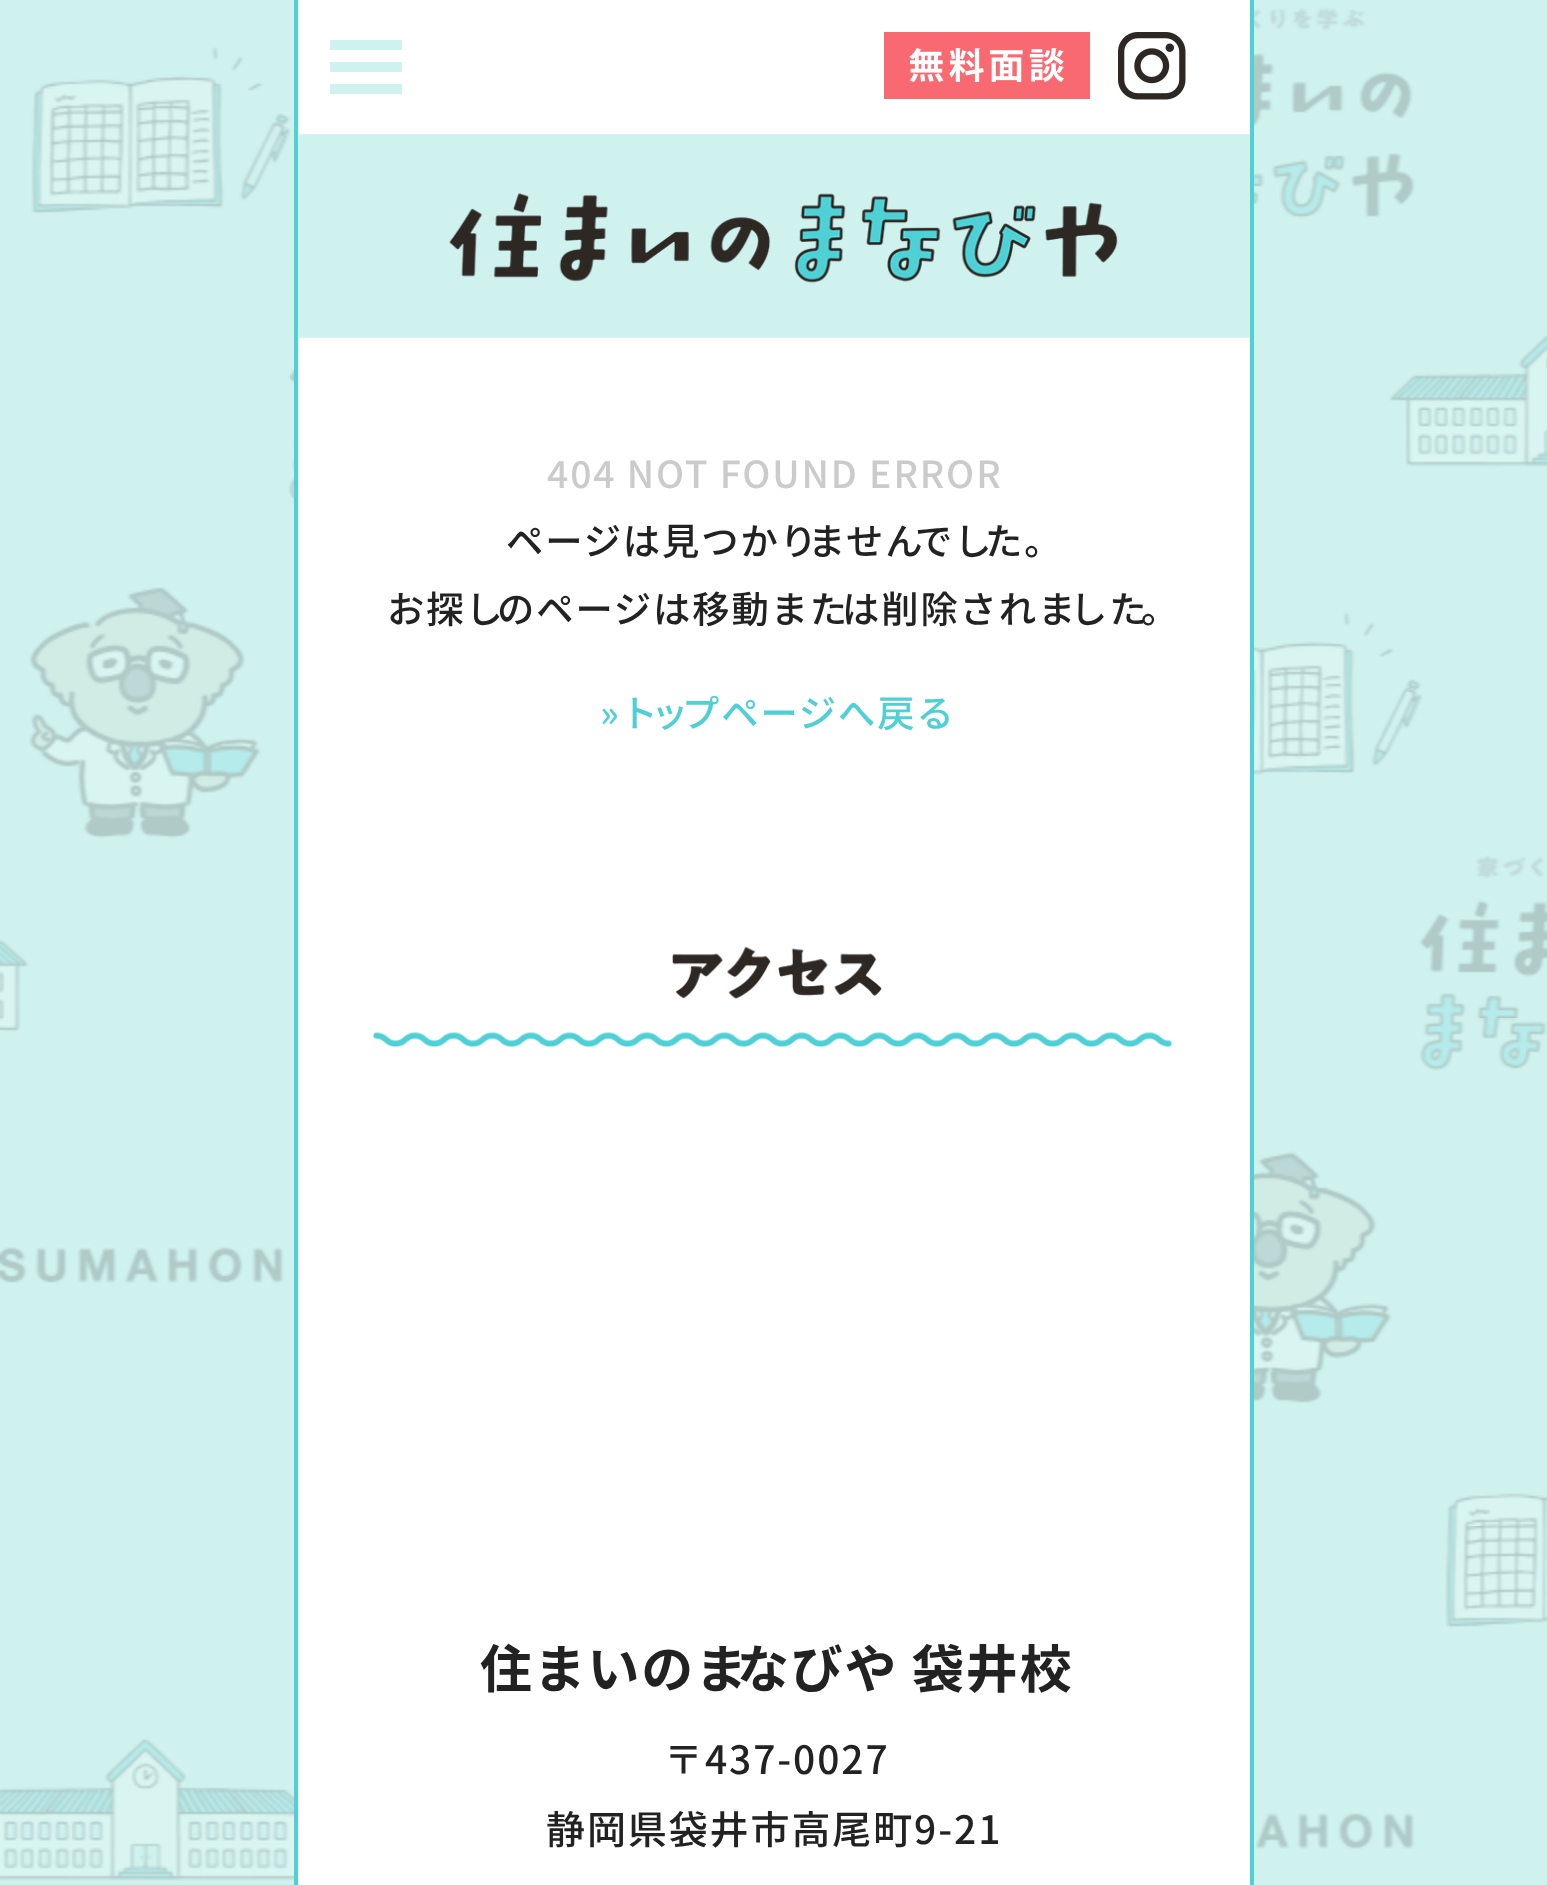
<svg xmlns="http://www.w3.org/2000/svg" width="1547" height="1885">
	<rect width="100%" height="100%" fill="#FFFFFF" />
	<image x="0" y="0" width="1547" height="1885" href="assets/img1.png" />
	<rect x="298" y="0" width="952" height="1885" fill="#FFFFFF" />
	<rect x="1250" y="0" width="4" height="1885" fill="#4FD0D5" />
	<rect x="294" y="0" width="4" height="1885" fill="#4FD0D5" />
	<rect x="330" y="40" width="72" height="10" fill="#CFF2EF" />
	<rect x="330" y="62" width="72" height="10" fill="#CFF2EF" />
	<rect x="330" y="84" width="72" height="10" fill="#CFF2EF" />
	<image x="884" y="32" width="206" height="67" href="assets/img2.png" />
	<image x="1118" y="32" width="68" height="68" href="assets/img3.png" />
	<image x="298" y="134" width="952" height="204" href="assets/img4.png" />
	<text x="547" y="488" font-family="Noto Sans JP" font-size="37.3" font-weight="500" letter-spacing="1.9" fill="#CBCBCB">404 NOT FOUND ERROR</text>
	<g font-family="Noto Sans JP" font-size="37.3" font-weight="500" letter-spacing="1.9" fill="#222222">
		<text x="506" y="555">ページは見つかり</text>
		<text x="808" y="555">ません</text>
		<text x="915" y="555">でし</text>
		<text x="985" y="555">た。</text>
		<text x="387" y="623">お探し</text>
		<text x="497" y="623">のページは移動また</text>
		<text x="842" y="623">は削除されま</text>
		<text x="1070" y="623">した</text>
		<text x="1141" y="623">。</text>
	</g>
	<text x="600" y="727" font-family="Noto Sans JP" font-size="37.3" font-weight="500" letter-spacing="1.9" fill="#4FD0D5">»ト</text>
	<text x="651" y="727" font-family="Noto Sans JP" font-size="37.3" font-weight="500" letter-spacing="1.9" fill="#4FD0D5">ッ</text>
	<text x="682" y="727" font-family="Noto Sans JP" font-size="37.3" font-weight="500" letter-spacing="1.9" fill="#4FD0D5">プページへ戻る</text>
	<image x="372" y="946" width="801" height="102" href="assets/img5.png" />
	<text x="480" y="1688" font-family="Noto Sans JP" font-size="51.9" font-weight="700" letter-spacing="1.9" fill="#222222">住まいのま</text>
	<text x="737" y="1688" font-family="Noto Sans JP" font-size="51.9" font-weight="700" letter-spacing="1.9" fill="#222222">なびや 袋井校</text>
	<text x="664" y="1774" font-family="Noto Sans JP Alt" font-size="39" font-weight="500" letter-spacing="1.9" fill="#222222">〒437-0027</text>
	<text x="546" y="1844" font-family="Noto Sans JP" font-size="39" font-weight="500" letter-spacing="1.9" fill="#222222">静岡県袋井市高尾町9-21</text>
</svg>
